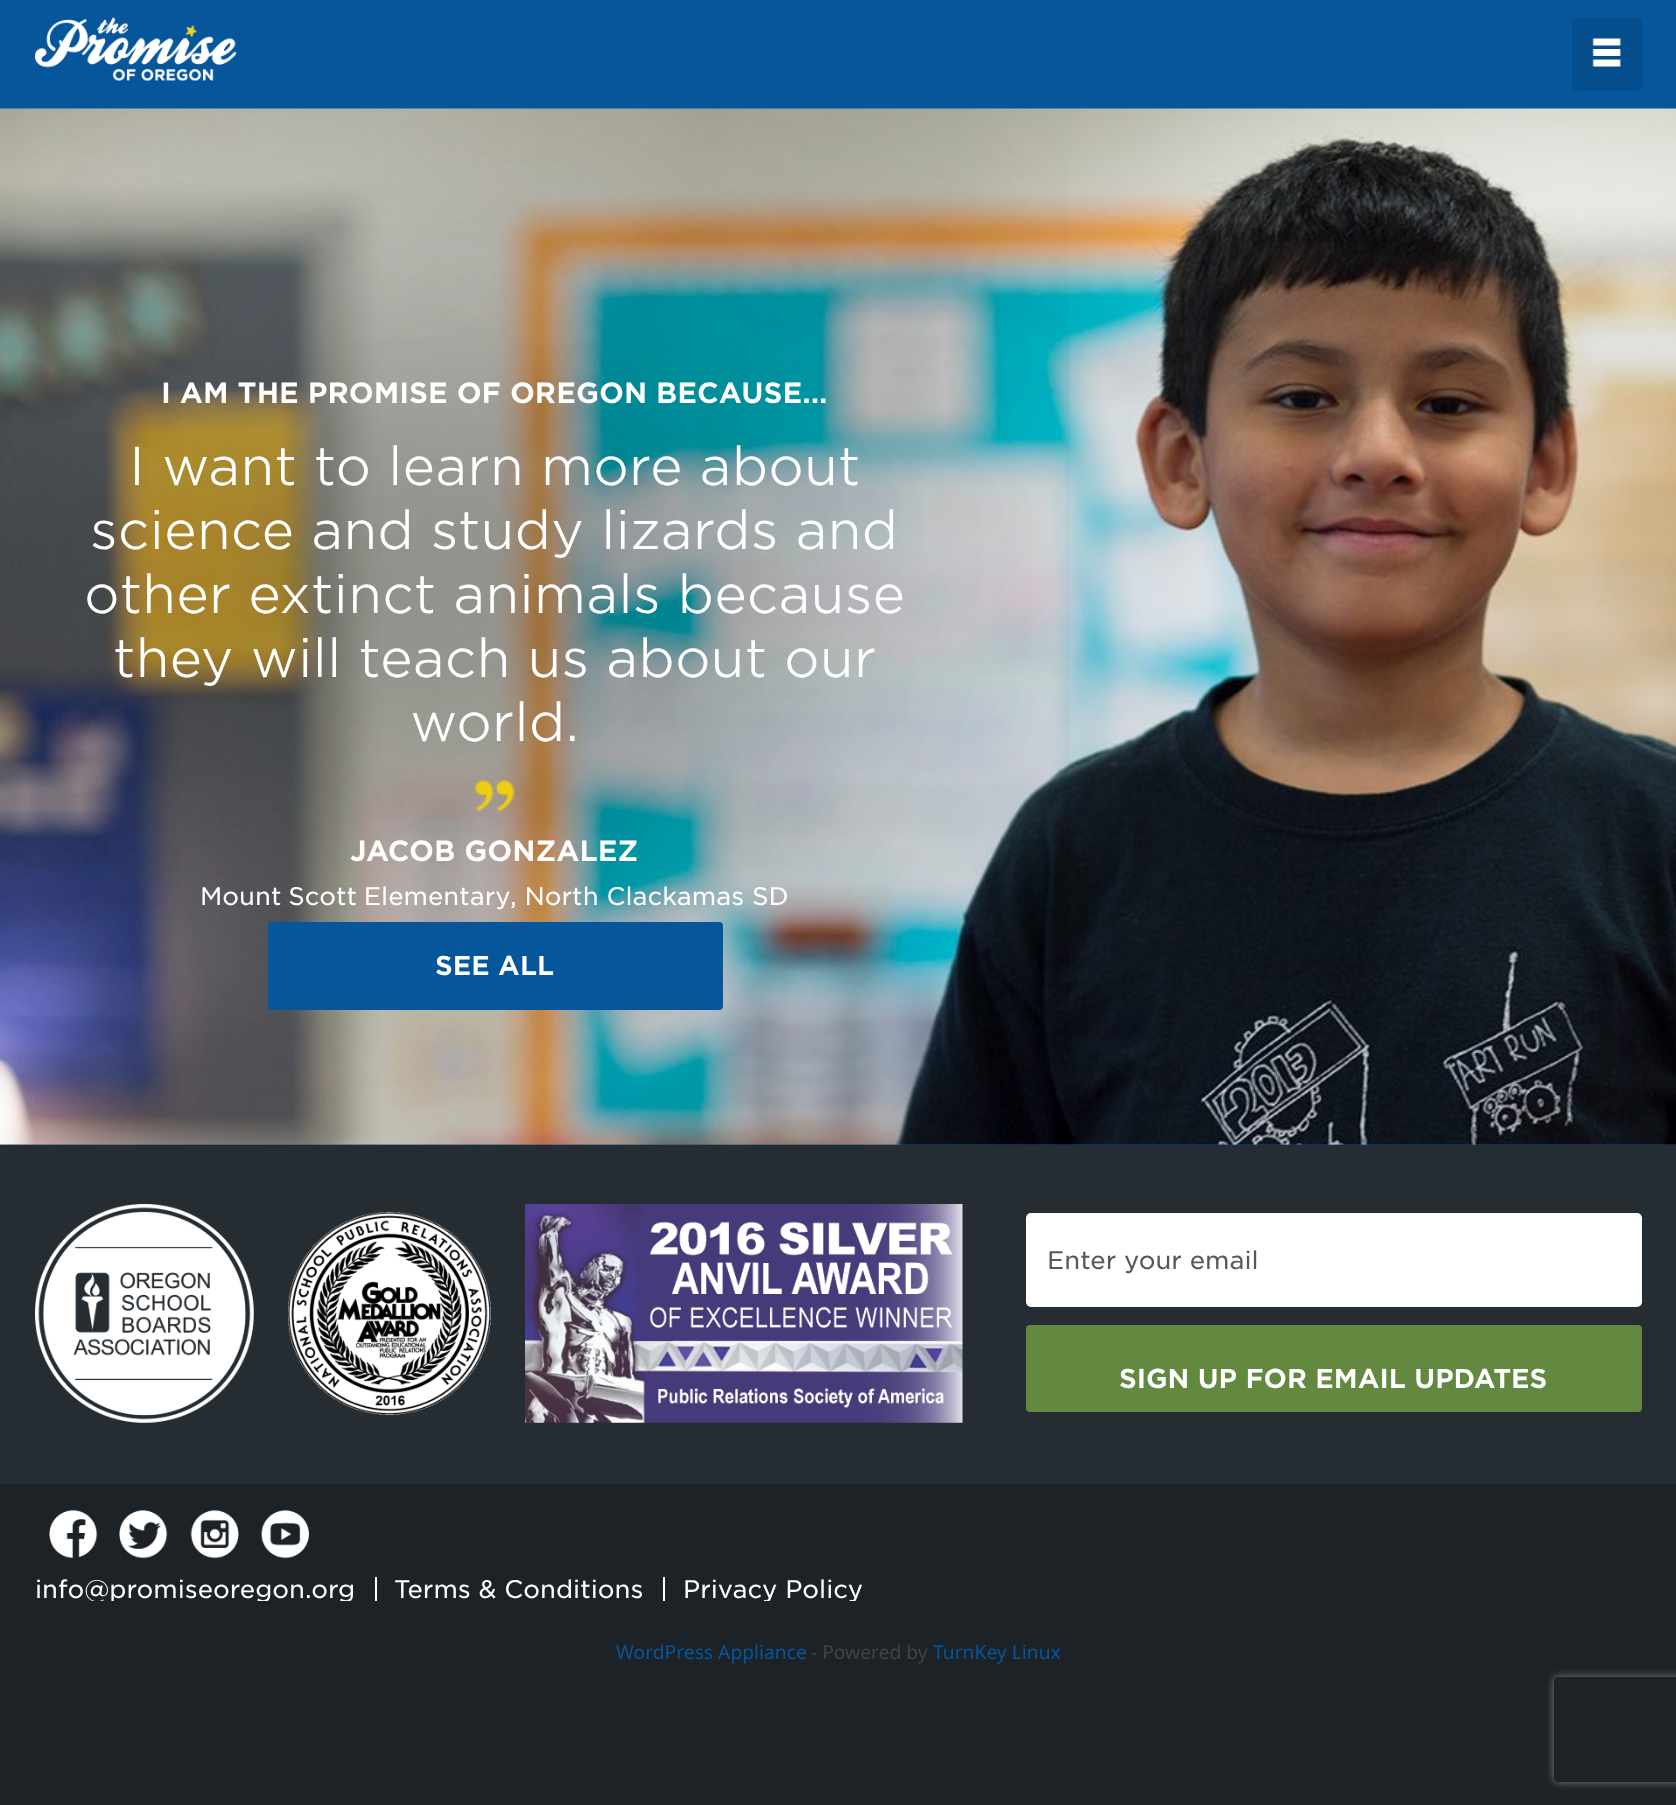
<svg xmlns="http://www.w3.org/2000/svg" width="1676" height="1805">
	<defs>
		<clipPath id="clip1"><rect x="35" y="1577" width="1607" height="24" /></clipPath>
		<clipPath id="clip2"><path d="M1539 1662H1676V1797H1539ZM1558 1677H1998C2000 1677 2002 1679 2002 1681V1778C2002 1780 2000 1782 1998 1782H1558C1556 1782 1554 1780 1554 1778V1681C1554 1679 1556 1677 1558 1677Z" clip-rule="evenodd" /></clipPath>
	</defs>
	<rect width="100%" height="100%" fill="#1D2227" />
	<rect x="0" y="0" width="1676" height="109" fill="#06569B" />
	<image x="35" y="17" width="202" height="64" href="assets/img1.png" />
	<rect x="1572" y="18" width="70" height="73" rx="4" fill="#054E8D" />
	<image x="1592" y="38" width="29" height="29" href="assets/img2.png" />
	<rect x="0" y="1144" width="1676" height="1" fill="#06569B" />
	<image x="0" y="108" width="1676" height="1037" href="assets/img3.png" />
	<image x="0" y="108" width="1070" height="1036" href="assets/img4.png" />
	<text x="161" y="403" font-family="'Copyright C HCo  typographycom'" font-size="28" fill="#FFFFFF">I AM THE PROMISE OF OREGON BECAUSE...</text>
	<g font-family="'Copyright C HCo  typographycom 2'" font-size="52.5" font-weight="300" fill="#FFFFFF">
		<text x="129" y="485">I want to learn more about</text>
		<text x="90" y="549">science and study lizards and</text>
		<text x="84" y="613">other extinct animals because</text>
		<text x="113" y="677">they will teach us about our</text>
		<text x="410" y="741">world.</text>
	</g>
	<image x="474" y="780" width="41" height="32" href="assets/img5.png" />
	<text x="350" y="861" font-family="'Copyright C HCo  typographycom'" font-size="28" fill="#FFFFFF">JACOB GONZALEZ</text>
	<g font-family="'Copyright C HCo  typographycom'" font-size="24.5" font-weight="300" fill="#FFFFFF">
		<text x="200" y="905" word-spacing="-1">Mount Scott Elementary</text>
		<text x="510" y="905">, North Clackamas SD</text>
	</g>
	<rect x="268" y="922" width="455" height="88" rx="4" fill="#06569B" />
	<text x="435" y="975" font-family="'Copyright C HCo  typographycom'" font-size="26.25" fill="#FFFFFF">SEE ALL</text>
	<rect x="0" y="1145" width="1676" height="339" fill="#252C32" />
	<image x="35" y="1204" width="219" height="219" href="assets/img6.png" />
	<image x="287" y="1211" width="204" height="204" href="assets/img7.png" />
	<image x="525" y="1204" width="438" height="219" href="assets/img8.png" />
	<rect x="1026" y="1213" width="616" height="94" rx="5" fill="#FFFFFF" />
	<text x="1047" y="1269" font-family="'Copyright C HCo  typographycom'" font-size="24.5" font-weight="300" fill="#585858">Enter your email</text>
	<rect x="1026" y="1325" width="616" height="87" rx="4" fill="#638941" />
	<text x="1119" y="1388" font-family="'Copyright C HCo  typographycom'" font-size="26.25" fill="#FFFFFF">SIGN UP FOR EMAIL UPDATES</text>
	<image x="49" y="1510" width="49" height="49" href="assets/img9.png" />
	<image x="119" y="1510" width="49" height="49" href="assets/img10.png" />
	<image x="190" y="1510" width="49" height="49" href="assets/img11.png" />
	<image x="261" y="1510" width="48" height="49" href="assets/img12.png" />
	<g clip-path="url(#clip1)">
		<text x="35" y="1598" font-family="'Copyright C HCo  typographycom'" font-size="24.5" font-weight="300" fill="#FFFFFF">info@promiseoregon.org</text>
	</g>
	<rect x="375" y="1577" width="2" height="24" fill="#FFFFFF" />
	<text x="394" y="1598" font-family="'Copyright C HCo  typographycom'" font-size="24.5" font-weight="300" fill="#FFFFFF">Terms &amp; Conditions</text>
	<rect x="663" y="1577" width="2" height="24" fill="#FFFFFF" />
	<g clip-path="url(#clip1)">
		<text x="683" y="1598" font-family="'Copyright C HCo  typographycom'" font-size="24.5" font-weight="300" fill="#FFFFFF">Privacy Policy</text>
	</g>
	<text x="616" y="1659" font-family="Noto Sans" font-size="19.25" fill="#06569B">WordPress Appliance</text>
	<text x="811" y="1659" font-family="Noto Sans" font-size="19.25" fill="#434343">- Powered by</text>
	<text x="933" y="1659" font-family="Noto Sans" font-size="19.25" fill="#06569B">TurnKey Linux</text>
	<g clip-path="url(#clip2)">
		<rect x="1554" y="1677" width="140" height="105" rx="4" fill="#808080" filter="blur(4.5px)" />
	</g>
</svg>
